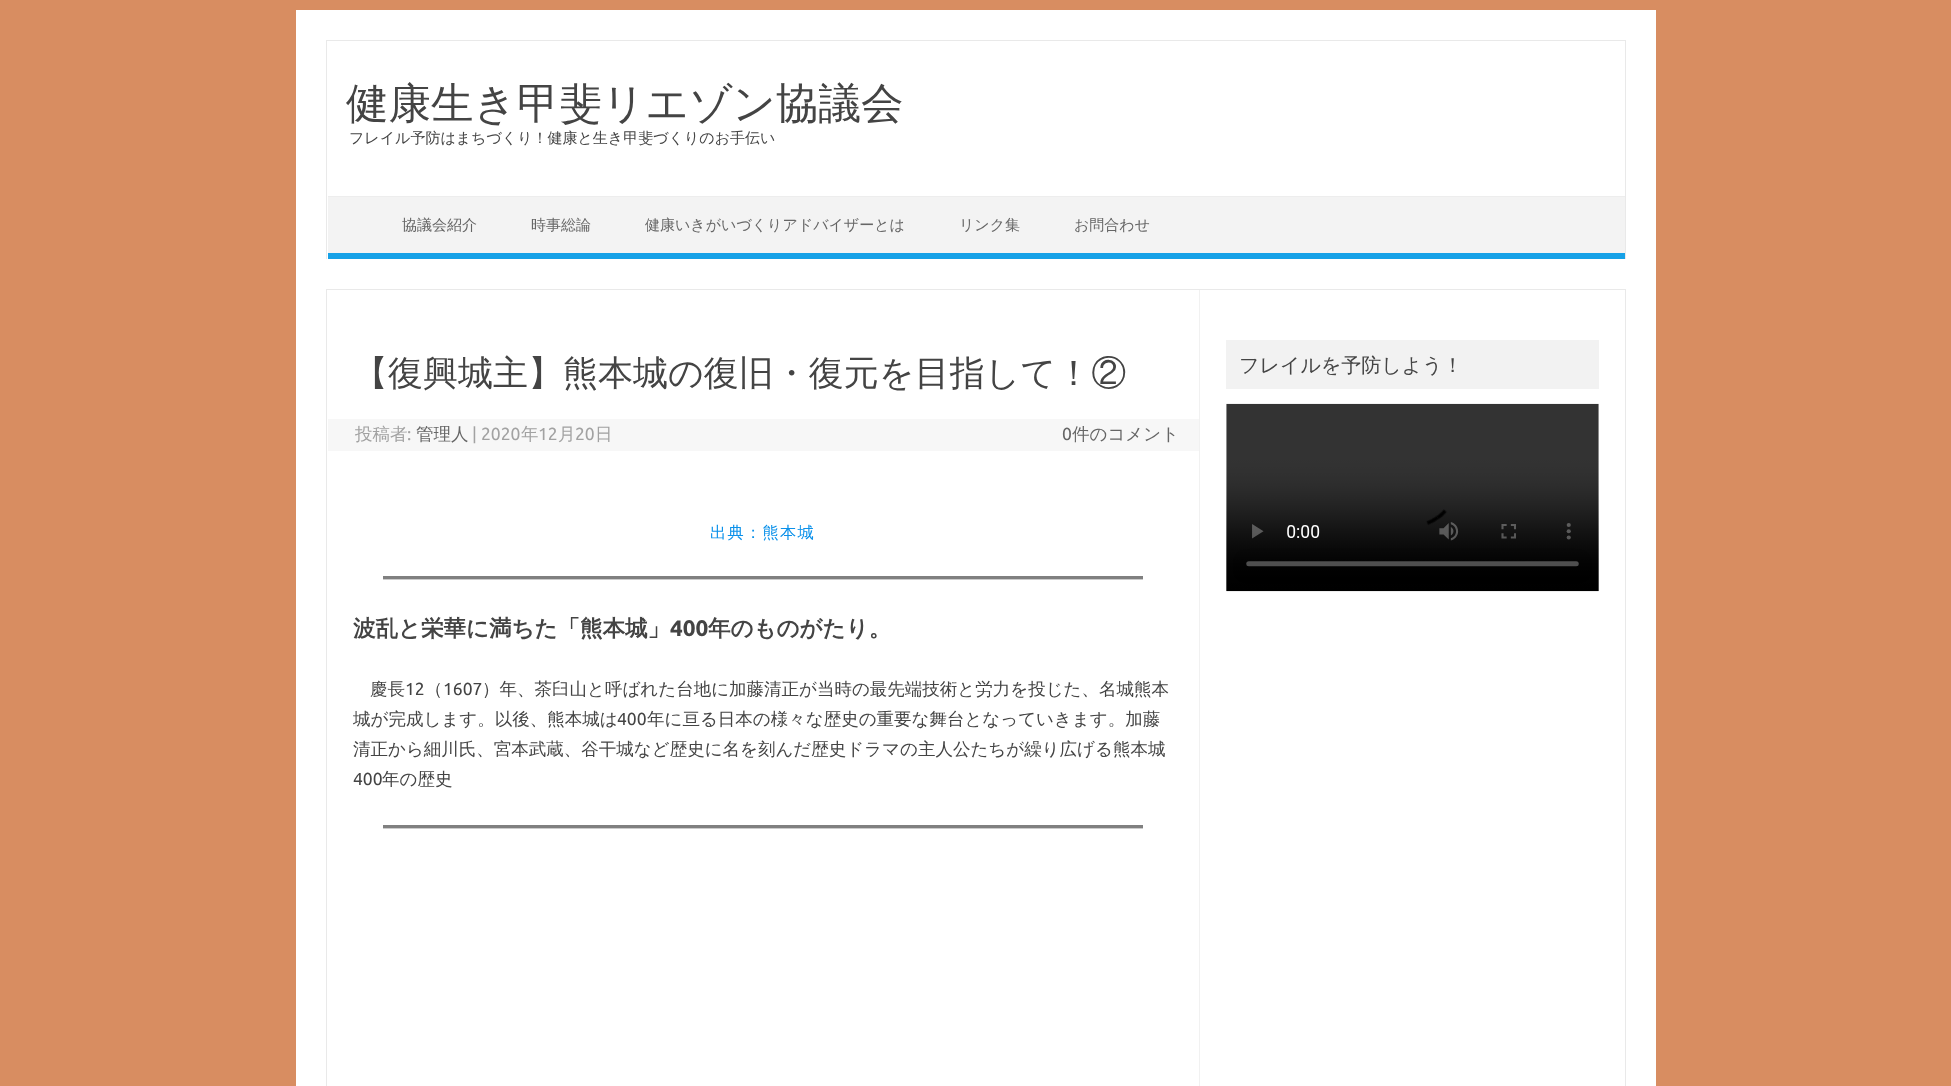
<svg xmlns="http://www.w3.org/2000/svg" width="1951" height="1086">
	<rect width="100%" height="100%" fill="#D88D61" />
	<rect x="296" y="10" width="1360" height="1076" fill="#FFFFFF" />
	<rect x="326" y="40" width="1300" height="1" fill="#E9E9E9" />
	<rect x="1625" y="40" width="1" height="219" fill="#E9E9E9" />
	<rect x="326" y="40" width="1" height="219" fill="#E9E9E9" />
	<text x="346" y="118" font-family="WenQuanYi Zen Hei" font-size="42.5" font-weight="500" fill="#444444">健康生き甲斐リエゾン協議会</text>
	<text x="349" y="143" font-family="WenQuanYi Zen Hei" font-size="15" font-weight="500" fill="#444444">フレイル予防はまちづくり！健康と生き甲斐づくりのお手伝い</text>
	<rect x="328" y="197" width="1297" height="56" fill="#F3F3F3" />
	<rect x="328" y="196" width="1297" height="1" fill="#EDEDED" />
	<rect x="328" y="253" width="1297" height="6" fill="#16A1E7" />
	<g font-family="WenQuanYi Zen Hei" font-size="15" font-weight="500" fill="#666666">
		<text x="402" y="230">協議会紹介</text>
		<text x="531" y="230">時事総論</text>
		<text x="645" y="230">健康いきがいづくりアドバイザーとは</text>
		<text x="959" y="230">リンク集</text>
		<text x="1074" y="230">お問合わせ</text>
	</g>
	<rect x="326.5" y="289.5" width="1299" height="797" fill="none" stroke="#E9E9E9" />
	<rect x="1199" y="290" width="1" height="796" fill="#F1F1F1" />
	<text x="353" y="385" font-family="WenQuanYi Zen Hei" font-size="35" font-weight="500" fill="#444444">【復興城主】熊本城の復旧・復元を目指して！②</text>
	<rect x="328" y="419" width="871" height="32" fill="#F7F7F7" />
	<text x="355" y="440" font-family="WenQuanYi Zen Hei" font-size="17.5" font-weight="500" fill="#A2A2A2">投稿者</text>
	<text x="407" y="440" font-family="Ubuntu" font-size="17.5" fill="#A2A2A2">:</text>
	<text x="416" y="440" font-family="WenQuanYi Zen Hei" font-size="17.5" font-weight="500" fill="#666666">管理人</text>
	<text x="472" y="440" font-family="Ubuntu" font-size="17.5" fill="#A2A2A2">| 2020</text>
	<text x="521" y="440" font-family="WenQuanYi Zen Hei" font-size="17.5" font-weight="500" fill="#A2A2A2">年</text>
	<text x="538" y="440" font-family="Ubuntu" font-size="17.5" fill="#A2A2A2">12</text>
	<text x="558" y="440" font-family="WenQuanYi Zen Hei" font-size="17.5" font-weight="500" fill="#A2A2A2">月</text>
	<text x="575" y="440" font-family="Ubuntu" font-size="17.5" fill="#A2A2A2">20</text>
	<text x="595" y="440" font-family="WenQuanYi Zen Hei" font-size="17.5" font-weight="500" fill="#A2A2A2">日</text>
	<text x="1062" y="440" font-family="Ubuntu" font-size="17.5" fill="#666666">0</text>
	<text x="1072" y="440" font-family="WenQuanYi Zen Hei" font-size="17.5" font-weight="500" fill="#666666">件のコメント</text>
	<text x="710" y="538" font-family="WenQuanYi Zen Hei" font-size="16.25" font-weight="500" letter-spacing="1.25" fill="#0B91EA">出典：熊本城</text>
	<rect x="383" y="579" width="760" height="1" fill="#CCCCCC" />
	<rect x="383" y="576" width="760" height="3" fill="#808080" />
	<text x="353" y="636" font-family="WenQuanYi Zen Hei" font-size="22.5" font-weight="700" fill="#444444">波乱と栄華に満ちた「熊本城」</text>
	<text x="670" y="636" font-family="Ubuntu" font-size="22.5" font-weight="700" fill="#444444">400</text>
	<text x="708" y="636" font-family="WenQuanYi Zen Hei" font-size="22.5" font-weight="700" fill="#444444">年のものがたり。</text>
	<text x="370" y="695" font-family="WenQuanYi Zen Hei" font-size="17.5" font-weight="500" fill="#444444">慶長</text>
	<text x="405" y="695" font-family="Ubuntu" font-size="17.5" fill="#444444">12</text>
	<text x="425" y="695" font-family="WenQuanYi Zen Hei" font-size="17.5" font-weight="500" fill="#444444">（</text>
	<text x="443" y="695" font-family="Ubuntu" font-size="17.5" fill="#444444">1607</text>
	<g font-family="WenQuanYi Zen Hei" font-size="17.5" font-weight="500" fill="#444444">
		<text x="482" y="695">）年、茶臼山と呼ばれた台地に加藤清正が当時の最先端技術と労力を投じた、名城熊本</text>
		<text x="353" y="725">城が完成します。以後、熊本城は</text>
	</g>
	<text x="617" y="725" font-family="Ubuntu" font-size="17.5" fill="#444444">400</text>
	<g font-family="WenQuanYi Zen Hei" font-size="17.5" font-weight="500" fill="#444444">
		<text x="647" y="725">年に亘る日本の様々な歴史の重要な舞台となっていきます。加藤</text>
		<text x="353" y="755">清正から細川氏、宮本武蔵、谷干城など歴史に名を刻んだ歴史ドラマの主人公たちが繰り広げる熊本城</text>
	</g>
	<text x="353" y="785" font-family="Ubuntu" font-size="17.5" fill="#444444">400</text>
	<text x="382" y="785" font-family="WenQuanYi Zen Hei" font-size="17.5" font-weight="500" fill="#444444">年の歴史</text>
	<rect x="383" y="828" width="760" height="1" fill="#CCCCCC" />
	<rect x="383" y="825" width="760" height="3" fill="#808080" />
	<rect x="1226" y="340" width="373" height="49" fill="#F2F2F2" />
	<text x="1239" y="372" font-family="WenQuanYi Zen Hei" font-size="20" font-weight="500" fill="#444444">フレイルを予防しよう！</text>
	<image x="1226" y="403" width="373" height="189" href="assets/img1.png" />
</svg>
